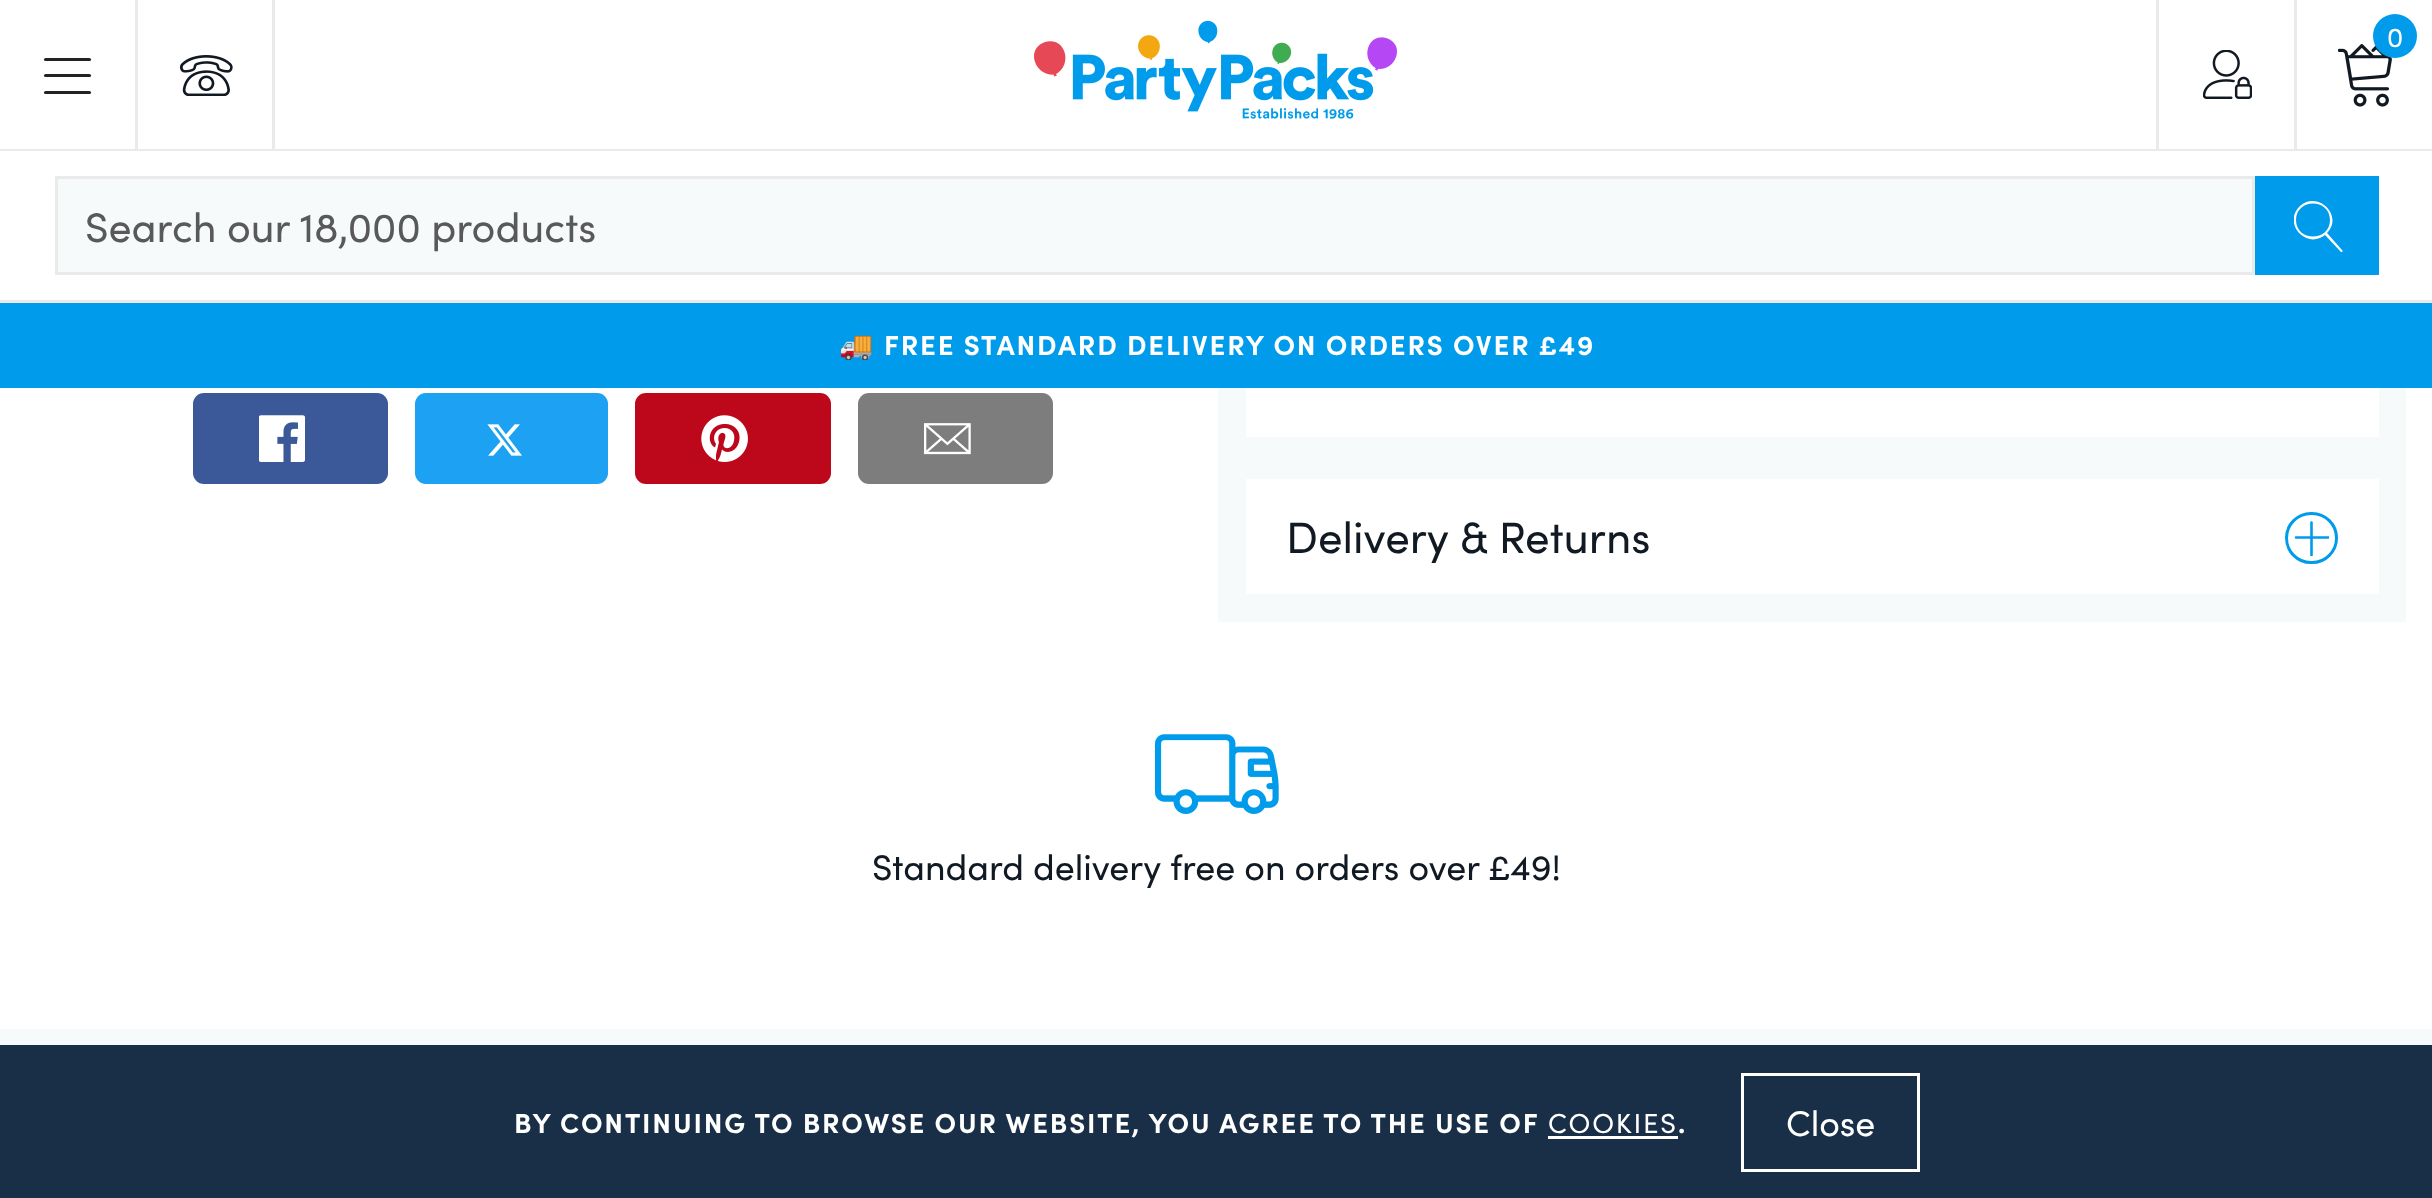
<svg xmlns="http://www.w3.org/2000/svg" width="2432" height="1198">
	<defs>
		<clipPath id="clip1"><rect x="2294" y="201" width="49" height="52" /></clipPath>
		<clipPath id="clip2"><rect x="55" y="330" width="2324" height="30" /></clipPath>
		<clipPath id="clip3"><rect x="2294" y="520" width="35" height="36" /></clipPath>
	</defs>
	<rect width="100%" height="100%" fill="#FFFFFF" />
	<rect x="0" y="149" width="2432" height="2" fill="#EAEAEA" />
	<rect x="135" y="0" width="3" height="149" fill="#EAEAEA" />
	<rect x="44" y="74" width="47" height="3" rx="1.5" fill="#242224" />
	<rect x="44" y="58" width="47" height="3" rx="1.5" fill="#242224" />
	<rect x="44" y="91" width="47" height="3" rx="1.5" fill="#242224" />
	<rect x="272" y="0" width="3" height="149" fill="#EAEAEA" />
	<image x="179" y="55" width="54" height="41" href="assets/img1.png" />
	<rect x="2156" y="0" width="3" height="149" fill="#EAEAEA" />
	<image x="1034" y="20" width="363" height="99" href="assets/img2.png" />
	<rect x="2294" y="0" width="3" height="149" fill="#EAEAEA" />
	<image x="2203" y="50" width="49" height="49" href="assets/img3.png" />
	<image x="2338" y="44" width="54" height="63" href="assets/img4.png" />
	<circle cx="2395" cy="36" r="22" fill="#009CEB" />
	<text x="2387" y="47" font-family="Sofia" font-size="27.5" fill="#FFFFFF">0</text>
	<rect x="0" y="300" width="2432" height="3" fill="#EAEAEA" />
	<rect x="56.5" y="177.5" width="2197" height="96" fill="#F6FAFB" stroke="#EAEAEA" stroke-width="3" />
	<text x="85" y="242" font-family="Sofia" font-size="41.25" fill="#595959">Search our 18,000 products</text>
	<rect x="2255" y="176" width="124" height="99" fill="#009CEB" />
	<g clip-path="url(#clip1)">
		<path d="M2342 250L2327 233C2344 216 2318 190 2300 206C2282 223 2306 250 2325 235L2341 252C2343 252 2343 251 2342 250ZM2296 220C2296 198 2330 198 2330 220C2330 242 2296 242 2296 220Z" fill="#FFFFFF" />
	</g>
	<rect x="0" y="303" width="2432" height="85" fill="#009CEB" />
	<g clip-path="url(#clip2)">
		<text x="839" y="355" font-family="Noto Color Emoji" font-size="27.5" font-weight="700" letter-spacing="1.82" fill="#FFFFFF">🚚</text>
	</g>
	<text x="884" y="355" font-family="Sofia" font-size="27.5" font-weight="700" letter-spacing="1.82" fill="#FFFFFF">FREE STANDARD DELIVERY ON ORDERS OVER £49</text>
	<rect x="193" y="393" width="195" height="91" rx="11" fill="#3B5998" />
	<image x="259" y="415" width="46" height="47" href="assets/img5.png" />
	<rect x="415" y="393" width="193" height="91" rx="11" fill="#1DA1F2" />
	<image x="487" y="424" width="35" height="32" href="assets/img6.png" />
	<rect x="635" y="393" width="196" height="91" rx="11" fill="#BD081C" />
	<image x="701" y="415" width="47" height="47" href="assets/img7.png" />
	<rect x="858" y="393" width="195" height="91" rx="11" fill="#7D7D7D" />
	<image x="924" y="423" width="47" height="32" href="assets/img8.png" />
	<rect x="1218" y="388" width="1188" height="234" fill="#F6FAFB" />
	<rect x="1246" y="388" width="1133" height="49" fill="#FFFFFF" />
	<rect x="1246" y="479" width="1133" height="115" fill="#FFFFFF" />
	<text x="1286" y="553" font-family="Sofia" font-size="44" fill="#111922">Delivery &amp; Returns</text>
	<rect x="2286.5" y="513.5" width="50" height="49" rx="24.5" fill="none" stroke="#009CEB" stroke-width="3" />
	<g clip-path="url(#clip3)">
		<path d="M2311.5 522.5V555.5M2296 537.5H2329" fill="none" stroke="#009CEB" stroke-width="2.6" stroke-linecap="round" />
	</g>
	<image x="1155" y="734" width="124" height="80" href="assets/img9.png" />
	<text x="872" y="880" font-family="Sofia" font-size="35.75" fill="#111922">Standard delivery free on orders over £49!</text>
	<rect x="0" y="1029" width="2432" height="16" fill="#F6FAFB" />
	<rect x="0" y="1045" width="2432" height="153" fill="#192F47" />
	<text x="514" y="1133" font-family="Sofia" font-size="27.5" font-weight="700" letter-spacing="1.82" fill="#FFFFFF">BY CONTINUING TO BROWSE OUR WEBSITE, YOU AGREE TO THE USE OF</text>
	<text x="1548" y="1133" font-family="Sofia" font-size="27.5" letter-spacing="1.82" fill="#FFFFFF">COOKIES</text>
	<rect x="1548" y="1136" width="130" height="3" fill="#FFFFFF" />
	<text x="1678" y="1133" font-family="Sofia" font-size="27.5" font-weight="700" letter-spacing="1.82" fill="#FFFFFF">.</text>
	<rect x="1742.5" y="1074.5" width="176" height="96" fill="none" stroke="#FFFFFF" stroke-width="3" />
	<text x="1786" y="1136" font-family="Sofia" font-size="35.75" fill="#FFFFFF">Close</text>
</svg>
